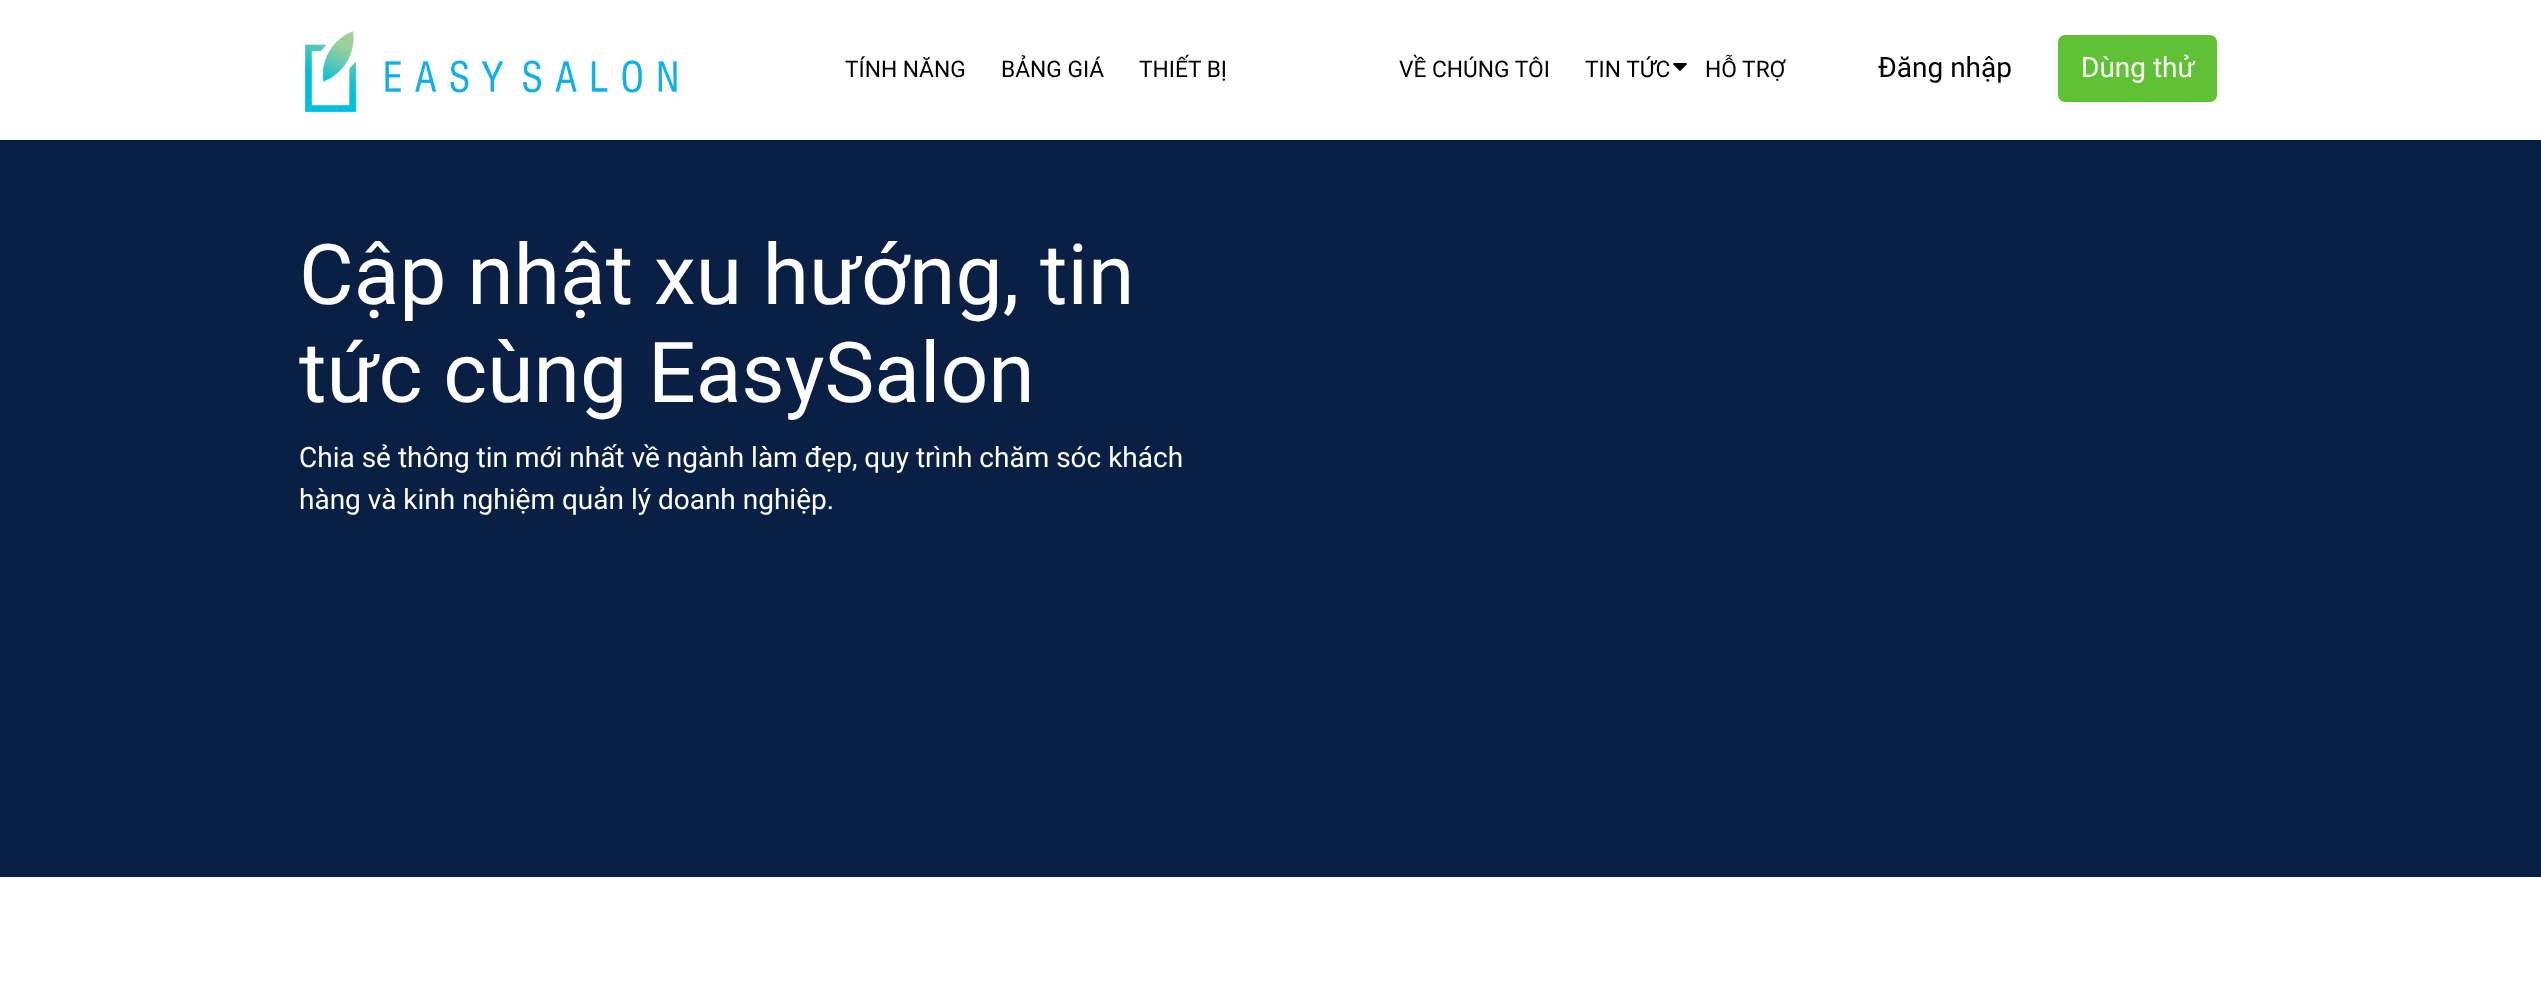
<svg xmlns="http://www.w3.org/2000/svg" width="2541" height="1001">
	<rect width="100%" height="100%" fill="#FFFFFF" />
	<image x="305" y="31" width="372" height="82" href="assets/img1.png" />
	<g font-family="Roboto" font-size="22.75" fill="#000000">
		<text x="845" y="77">TÍNH NĂNG</text>
		<text x="1001" y="77">BẢNG GIÁ</text>
		<text x="1139" y="77">THIẾT BỊ</text>
		<text x="1399" y="77">VỀ CHÚNG TÔI</text>
		<text x="1585" y="77">TIN TỨC</text>
	</g>
	<image x="1673" y="63" width="14" height="8" href="assets/img2.png" />
	<text x="1705" y="77" font-family="Roboto" font-size="22.75" fill="#000000">HỖ TRỢ</text>
	<text x="1878" y="77" font-family="Roboto" font-size="28" fill="#000000">Đăng nhập</text>
	<rect x="2059" y="36" width="157" height="65" rx="6" fill="#61C134" stroke="#61C134" stroke-width="2" />
	<text x="2081" y="77" font-family="Roboto" font-size="28" fill="#FFFFFF">Dùng thử</text>
	<rect x="0" y="140" width="2541" height="737" fill="#0A1F44" />
	<g font-family="Roboto" font-size="84" fill="#FFFFFF">
		<text x="299" y="304">Cập nhật xu hướng, tin</text>
		<text x="299" y="402">tức cùng EasySalon</text>
	</g>
	<g font-family="Roboto" font-size="28" fill="#FFFFFF">
		<text x="299" y="467">Chia sẻ thông tin mới nhất về ngành làm đẹp, quy trình chăm sóc khách</text>
		<text x="299" y="509">hàng và kinh nghiệm quản lý doanh nghiệp.</text>
	</g>
</svg>
